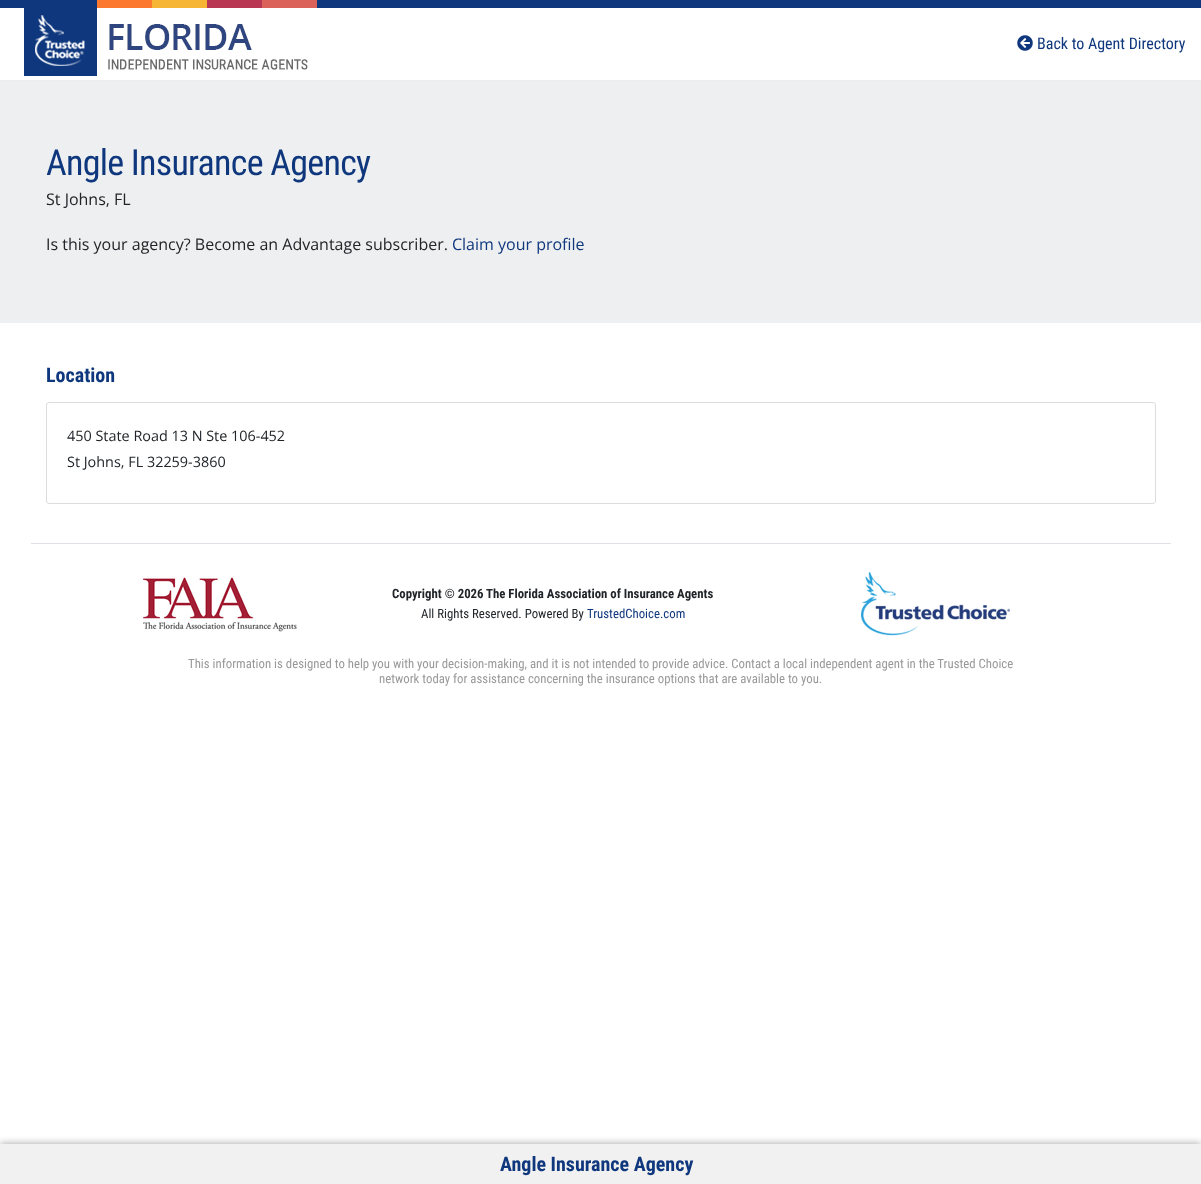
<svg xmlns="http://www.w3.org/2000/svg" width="1201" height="1184">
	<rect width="100%" height="100%" fill="#FFFFFF" />
	<rect x="0" y="80" width="1201" height="1" fill="#EDEDED" />
	<rect x="0" y="0" width="1201" height="8" fill="#0F377D" />
	<rect x="97" y="0" width="55" height="8" fill="#FC782F" />
	<rect x="152" y="0" width="55" height="8" fill="#F7B536" />
	<rect x="207" y="0" width="55" height="8" fill="#BA3753" />
	<rect x="262" y="0" width="55" height="8" fill="#DA625B" />
	<rect x="24" y="8" width="73" height="68" fill="#0F377D" />
	<image x="35" y="15" width="50" height="51" href="assets/img1.png" />
	<image x="108" y="24" width="200" height="46" href="assets/img2.png" />
	<image x="1017" y="35" width="16" height="16" href="assets/img3.png" />
	<text x="1037" y="49" font-family="Roboto Condensed" font-size="16" fill="#0F377D">Back to Agent Directory</text>
	<rect x="0" y="81" width="1201" height="242" fill="#EEEFF0" />
	<text x="46" y="175" font-family="Roboto Condensed" font-size="36" letter-spacing="-0.75" fill="#0F377D">Angle Insurance Agency</text>
	<g font-family="Open Sans" font-size="16" fill="#212529">
		<text x="46" y="205">St Johns, FL</text>
		<text x="46" y="250">Is this your agency? Become an Advantage subscriber.</text>
	</g>
	<text x="452" y="250" font-family="Open Sans" font-size="16" fill="#0F377D">Claim your profile</text>
	<text x="46" y="382" font-family="Roboto Condensed" font-size="20" font-weight="700" fill="#0F377D">Location</text>
	<rect x="46.5" y="402.5" width="1109" height="101" rx="2.5" fill="none" stroke="#DDDDDD" />
	<g font-family="Open Sans" font-size="14.4" fill="#212529">
		<text x="67" y="441">450 State Road 13 N Ste 106-452</text>
		<text x="67" y="467">St Johns, FL 32259-3860</text>
	</g>
	<rect x="31" y="543" width="1140" height="1" fill="#DEE2E6" />
	<image x="143" y="577" width="154" height="55" href="assets/img4.png" />
	<g font-family="Roboto Condensed" font-size="12.8" font-weight="700" fill="#212529">
		<text x="392" y="598">Copyright © 2026</text>
		<text x="486" y="598">The Florida Association of Insurance Agents</text>
	</g>
	<text x="421" y="618" font-family="Roboto Condensed" font-size="12.8" fill="#212529">All Rights Reserved. Powered By</text>
	<text x="587" y="618" font-family="Roboto Condensed" font-size="12.8" fill="#0F377D">TrustedChoice.com</text>
	<image x="861" y="572" width="149" height="64" href="assets/img5.png" />
	<g font-family="Roboto Condensed" font-size="12.8" fill="#999999">
		<text x="188" y="668">This information is designed to help you with your decision-making, and it is not intended to provide advice. Contact a local independent agent in the Trusted Choice</text>
		<text x="379" y="683">network today for assistance concerning the insurance options that are available to you.</text>
	</g>
	<rect x="0" y="1143" width="1201" height="40" fill="#000000" fill-opacity="0.3" filter="blur(3.5px)" />
	<rect x="0" y="1144" width="1201" height="40" fill="#F1F1F1" />
	<text x="500" y="1171" font-family="Roboto Condensed" font-size="20" font-weight="700" fill="#0F377D">Angle Insurance Agency</text>
</svg>
